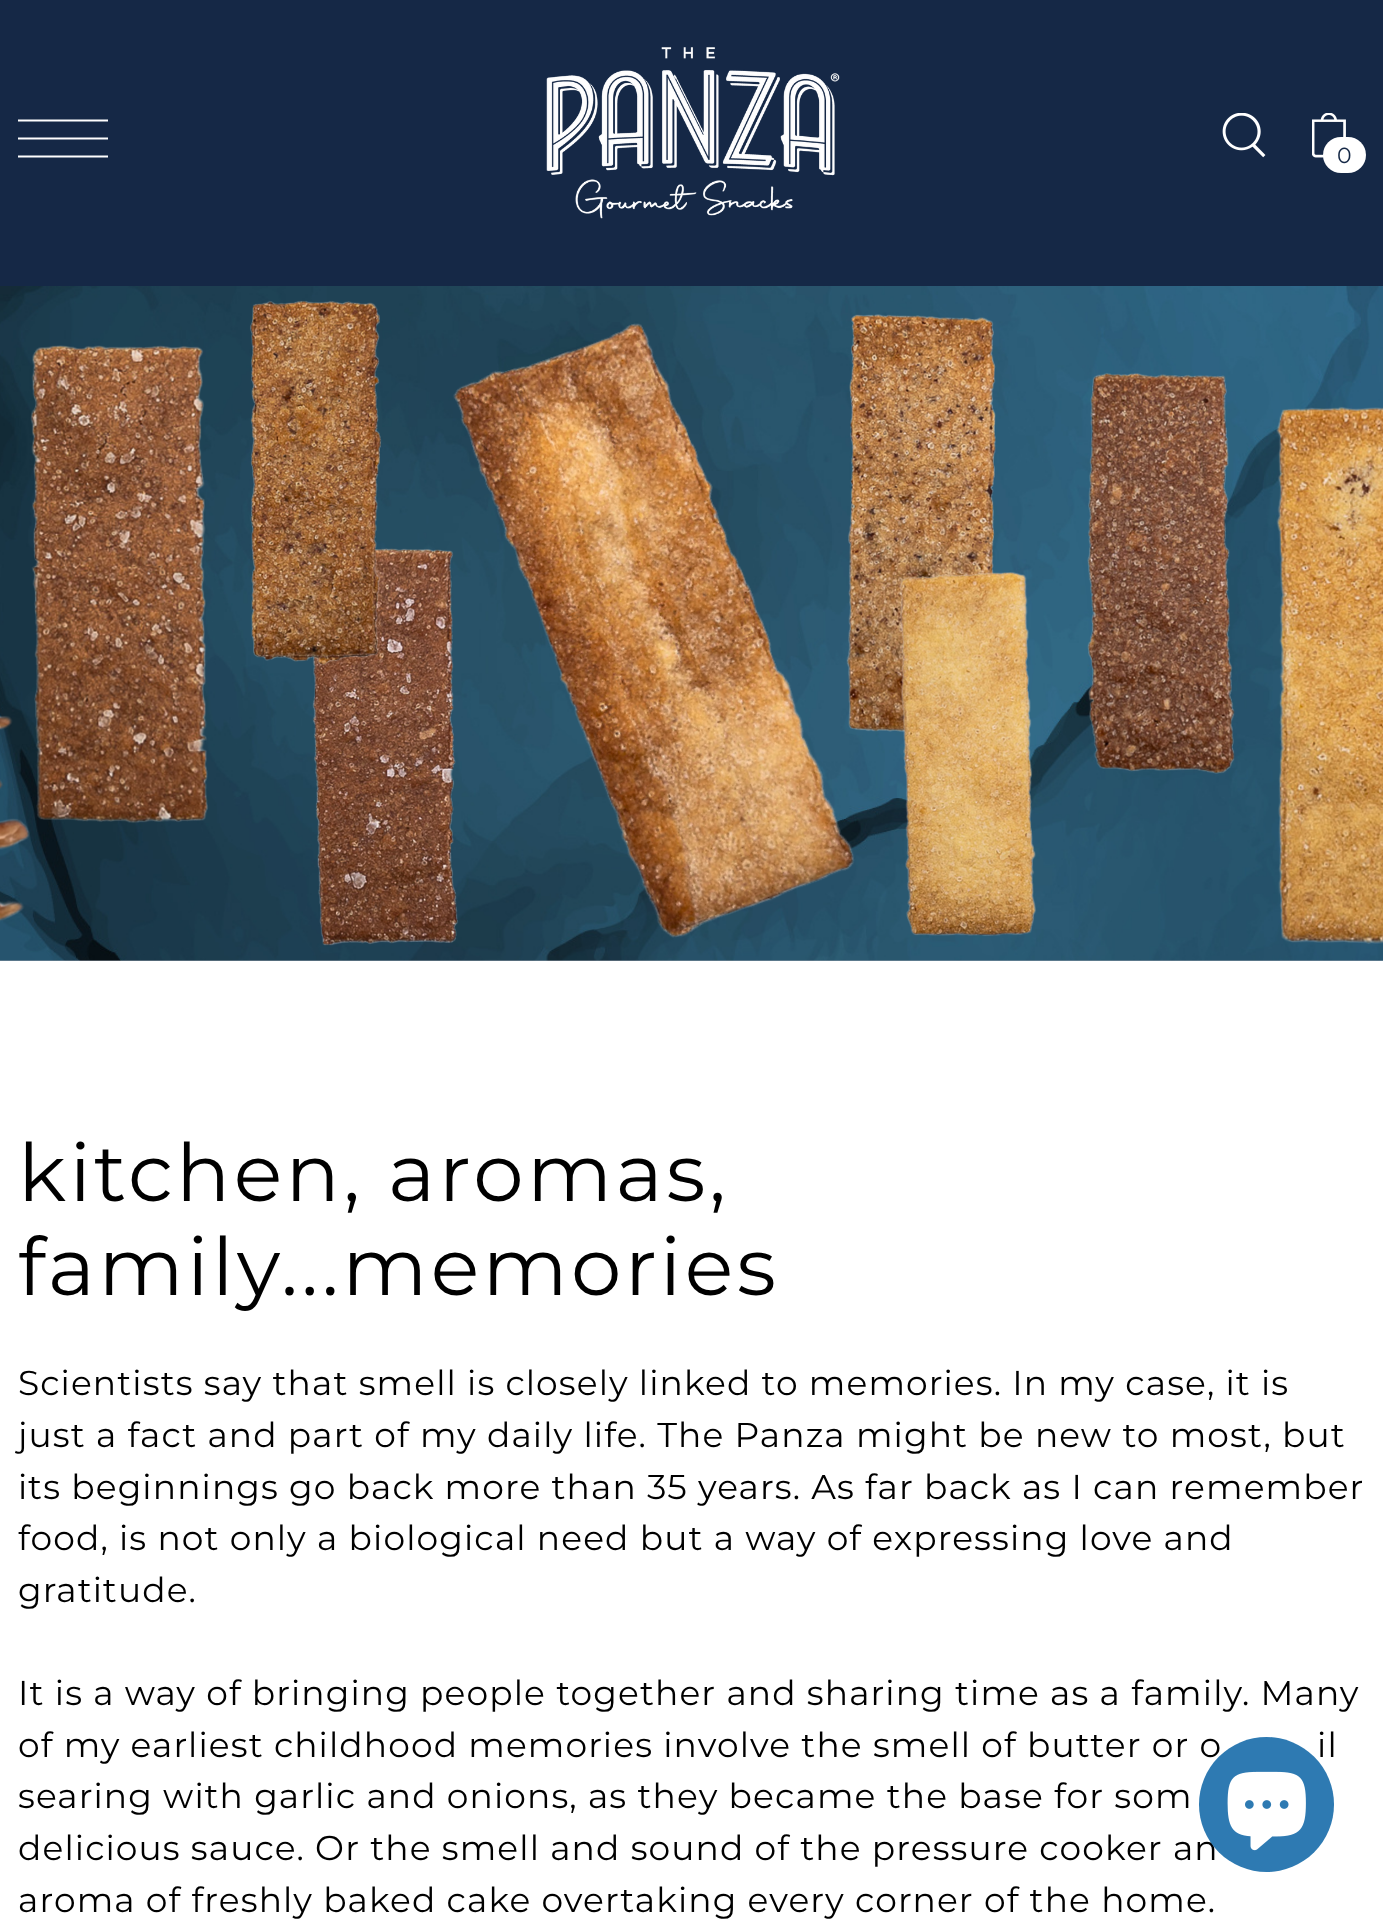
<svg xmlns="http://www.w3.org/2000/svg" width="1383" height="1919">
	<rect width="100%" height="100%" fill="#FFFFFF" />
	<rect x="0" y="0" width="1383" height="286" fill="#152846" />
	<path d="M18 120.5H108" fill="none" stroke="#FFFFFF" stroke-width="2.2" />
	<path d="M18 138.5H108" fill="none" stroke="#FFFFFF" stroke-width="2.2" />
	<path d="M18 156.5H108" fill="none" stroke="#FFFFFF" stroke-width="2.2" />
	<image x="546" y="47" width="294" height="172" href="assets/img1.png" />
	<image x="1222" y="113" width="44" height="45" href="assets/img2.png" />
	<image x="1312" y="113" width="34" height="45" href="assets/img3.png" />
	<rect x="1323" y="137" width="43" height="36" rx="18" fill="#FFFFFF" />
	<text x="1337" y="163" font-family="Montserrat" font-size="22" letter-spacing="1.12" fill="#152846">0</text>
	<image x="0" y="286" width="1383" height="675" href="assets/img4.png" />
	<g font-family="Montserrat" font-size="80.25" letter-spacing="3.4" fill="#000000">
		<text x="18" y="1201">kitchen, aromas,</text>
		<text x="18" y="1295">family...memories</text>
	</g>
	<g font-family="Montserrat" font-size="34.45" letter-spacing="1.12" fill="#000000">
		<text x="18" y="1395">Scientists say that smell is closely linked to memories. In my case, it is</text>
		<text x="18" y="1447">just a fact and part of my daily life. The Panza might be new to most, but</text>
		<text x="18" y="1499">its beginnings go back more than 35 years. As far back as I can remember</text>
		<text x="18" y="1550">food, is not only a biological need but a way of expressing love and</text>
		<text x="18" y="1602">gratitude.</text>
		<text x="18" y="1705">It is a way of bringing people together and sharing time as a family. Many</text>
		<text x="18" y="1757">of my earliest childhood memories involve the smell of butter or o</text>
		<text x="1317" y="1757">il</text>
		<text x="18" y="1808">searing with garlic and onions, as they became the base for som</text>
		<text x="18" y="1860">delicious sauce. Or the smell and sound of the pressure cooker an</text>
		<text x="18" y="1912">aroma of freshly baked cake overtaking every corner of the home.</text>
	</g>
	<circle cx="1266.5" cy="1804.5" r="67.5" fill="#2E7AB2" />
	<image x="1227" y="1771" width="79" height="80" href="assets/img5.png" />
</svg>
